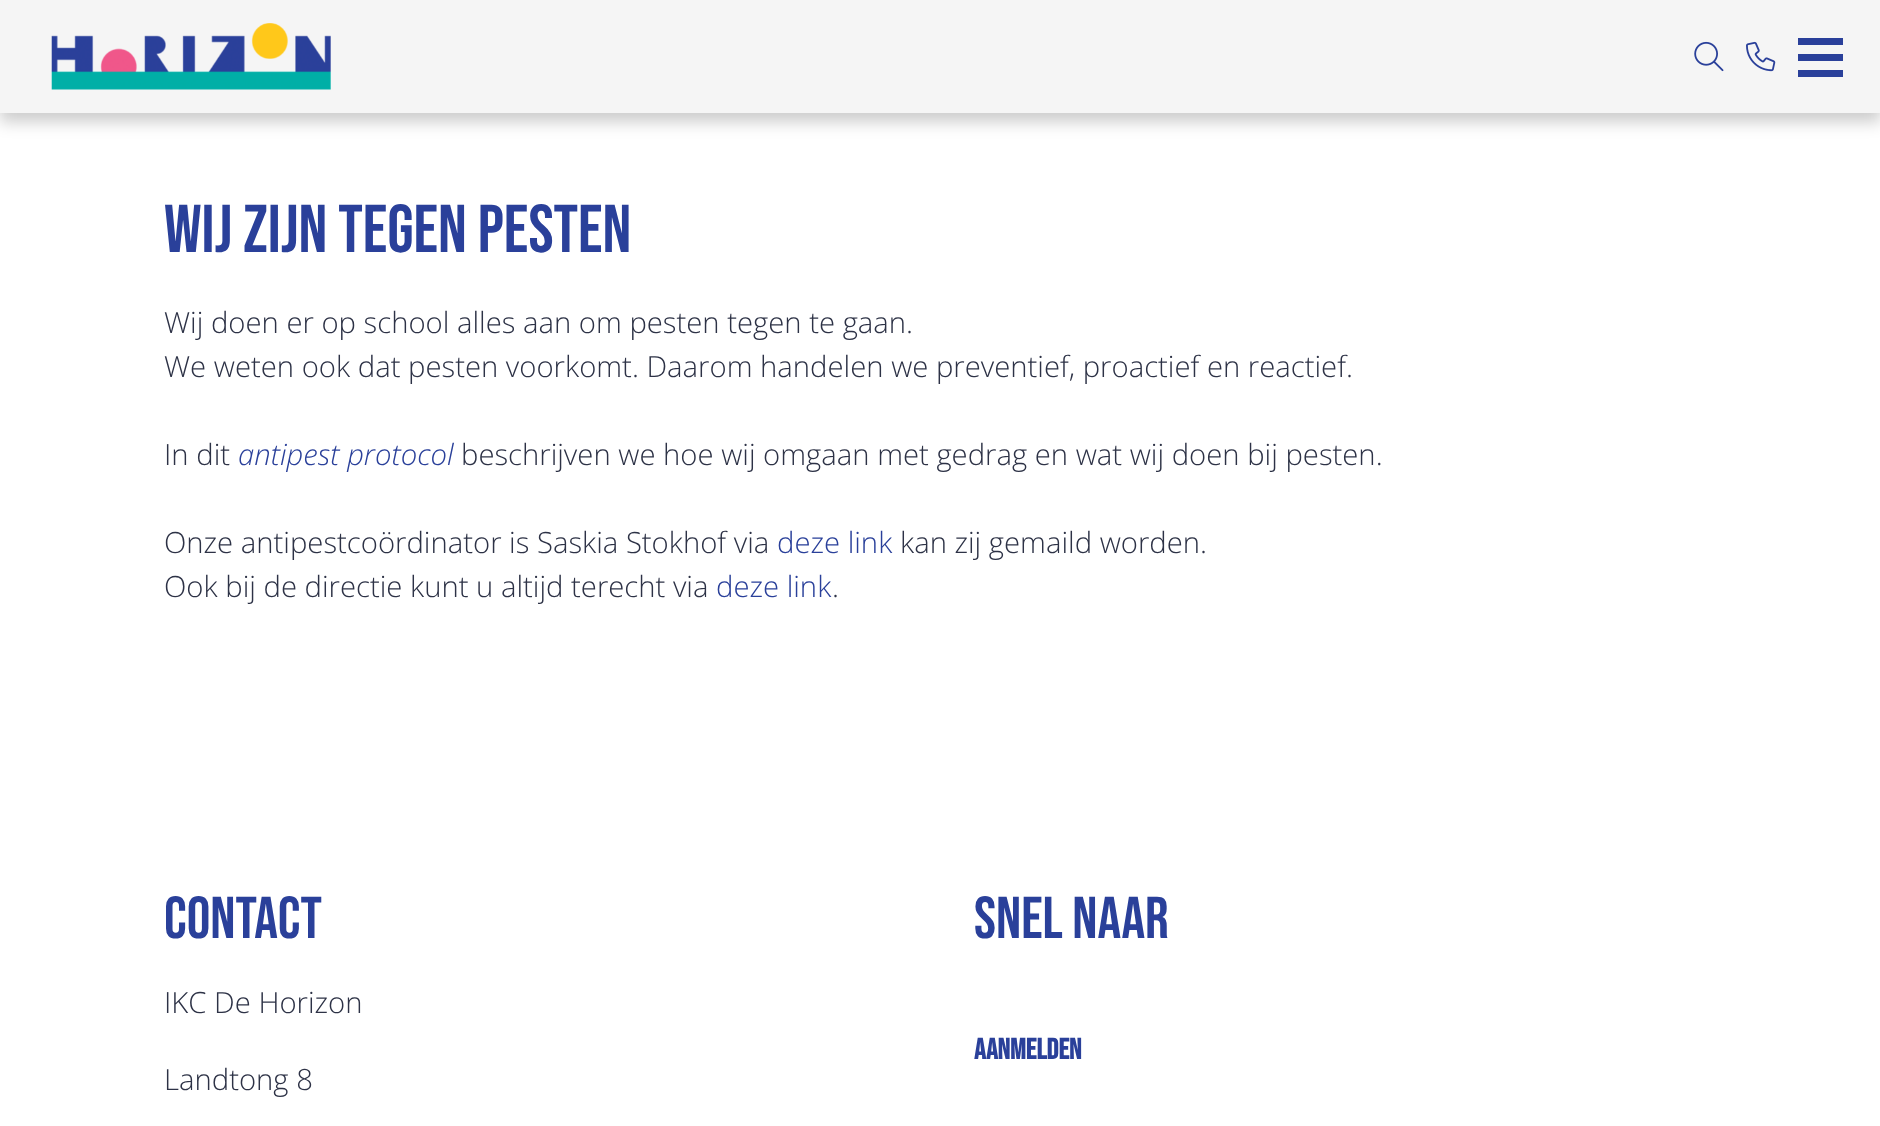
<svg xmlns="http://www.w3.org/2000/svg" width="1880" height="1126">
	<defs>
		<clipPath id="clip1"><path d="M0 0H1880V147H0ZM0 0H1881V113H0Z" clip-rule="evenodd" /></clipPath>
	</defs>
	<rect width="100%" height="100%" fill="#FFFFFF" />
	<rect x="0" y="0" width="1880" height="113" fill="#F5F5F5" />
	<g clip-path="url(#clip1)">
		<rect x="0" y="9" width="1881" height="113" fill="#000000" fill-opacity="0.2" filter="blur(8px)" />
	</g>
	<image x="51" y="23" width="280" height="67" href="assets/img1.png" />
	<image x="1694" y="41" width="30" height="31" href="assets/img2.png" />
	<image x="1746" y="41" width="30" height="31" href="assets/img3.png" />
	<rect x="1798" y="54" width="45" height="7" fill="#2A409A" />
	<rect x="1798" y="38" width="45" height="7" fill="#2A409A" />
	<rect x="1798" y="70" width="45" height="7" fill="#2A409A" />
	<text x="164" y="252" font-family="Bebas Neue" font-size="67.5" fill="#2A409A">Wij zijn tegen pesten</text>
	<g font-family="Open Sans" font-size="29.25" font-weight="300" fill="#2D3246">
		<text x="164" y="333">Wij doen er op school alles aan om pesten tegen te gaan.</text>
		<text x="164" y="377">We weten ook dat pesten voorkomt. Daarom handelen we preventief, proactief en reactief.</text>
		<text x="164" y="465">In dit</text>
	</g>
	<text x="238" y="465" font-family="Open Sans" font-size="29.25" font-weight="300" font-style="italic" fill="#2A409A">antipest protocol</text>
	<g font-family="Open Sans" font-size="29.25" font-weight="300" fill="#2D3246">
		<text x="461" y="465">beschrijven we hoe wij omgaan met gedrag en wat wij doen bij pesten.</text>
		<text x="164" y="553">Onze antipestcoördinator is Saskia Stokhof via</text>
	</g>
	<text x="777" y="553" font-family="Open Sans" font-size="29.25" font-weight="300" fill="#2A409A">deze link</text>
	<g font-family="Open Sans" font-size="29.25" font-weight="300" fill="#2D3246">
		<text x="900" y="553">kan zij gemaild worden.</text>
		<text x="164" y="597">Ook bij de directie kunt u altijd terecht via</text>
	</g>
	<text x="716" y="597" font-family="Open Sans" font-size="29.25" font-weight="300" fill="#2A409A">deze link</text>
	<text x="832" y="597" font-family="Open Sans" font-size="29.25" font-weight="300" fill="#2D3246">.</text>
	<text x="164" y="938" font-family="Bebas Neue" font-size="59" fill="#2A409A">Contact</text>
	<g font-family="Open Sans" font-size="29.25" font-weight="300" fill="#2D3246">
		<text x="164" y="1013">IKC De Horizon</text>
		<text x="164" y="1090">Landtong 8</text>
	</g>
	<text x="974" y="938" font-family="Bebas Neue" font-size="59" fill="#2A409A">Snel naar</text>
	<text x="974" y="1059" font-family="Bebas Neue" font-size="29.25" font-weight="700" fill="#2A409A">Aanmelden</text>
</svg>
